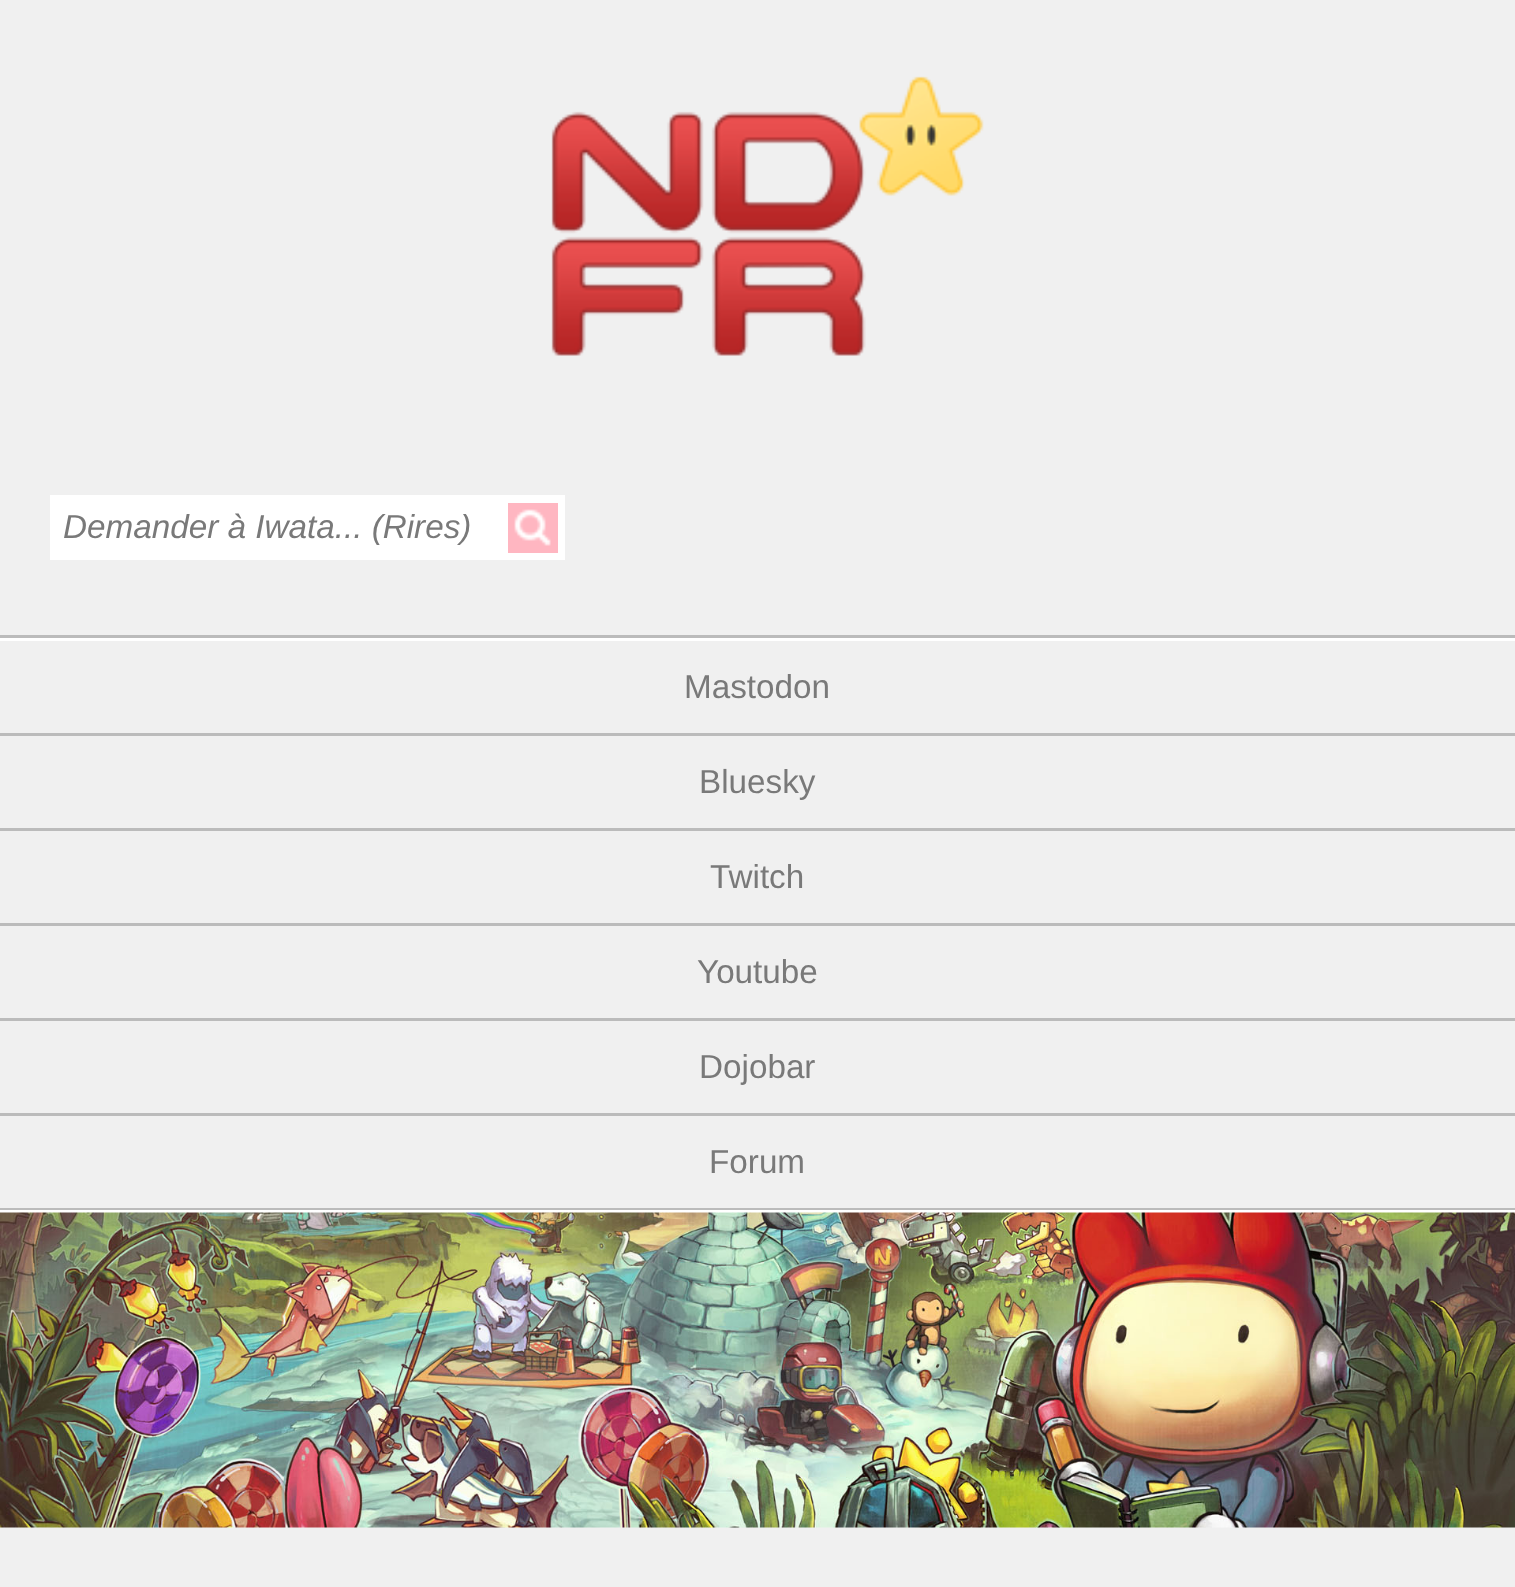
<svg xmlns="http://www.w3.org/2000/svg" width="1515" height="1587">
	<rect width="100%" height="100%" fill="#F0F0F0" />
	<image x="551" y="76" width="433" height="280" href="assets/img1.png" />
	<rect x="50" y="495" width="515" height="65" fill="#FFFFFF" />
	<text x="63" y="538" font-family="Liberation Sans" font-size="33.25" font-style="italic" fill="#797979">Demander à Iwata... (Rires)</text>
	<rect x="508" y="503" width="50" height="50" fill="#FFB6C1" />
	<image x="514" y="509" width="37" height="37" href="assets/img2.png" />
	<rect x="0" y="635" width="1515" height="3" fill="#BBBBBB" />
	<rect x="0" y="638" width="1515" height="3" fill="#FFFFFF" />
	<rect x="0" y="733" width="1515" height="3" fill="#BBBBBB" />
	<text x="684" y="698" font-family="Liberation Sans" font-size="33.25" fill="#797979">Mastodon</text>
	<rect x="0" y="828" width="1515" height="3" fill="#BBBBBB" />
	<text x="699" y="793" font-family="Liberation Sans" font-size="33.25" fill="#797979">Bluesky</text>
	<rect x="0" y="923" width="1515" height="3" fill="#BBBBBB" />
	<text x="710" y="888" font-family="Liberation Sans" font-size="33.25" fill="#797979">Twitch</text>
	<rect x="0" y="1018" width="1515" height="3" fill="#BBBBBB" />
	<text x="697" y="983" font-family="Liberation Sans" font-size="33.25" fill="#797979">Youtube</text>
	<rect x="0" y="1113" width="1515" height="3" fill="#BBBBBB" />
	<g font-family="Liberation Sans" font-size="33.25" fill="#797979">
		<text x="699" y="1078">Dojobar</text>
		<text x="709" y="1173">Forum</text>
	</g>
	<rect x="0" y="1208" width="1515" height="2" fill="#BBBBBB" />
	<rect x="0" y="1210" width="1515" height="3" fill="#FFFFFF" />
	<image x="0" y="1212" width="1515" height="316" href="assets/img3.png" />
</svg>
